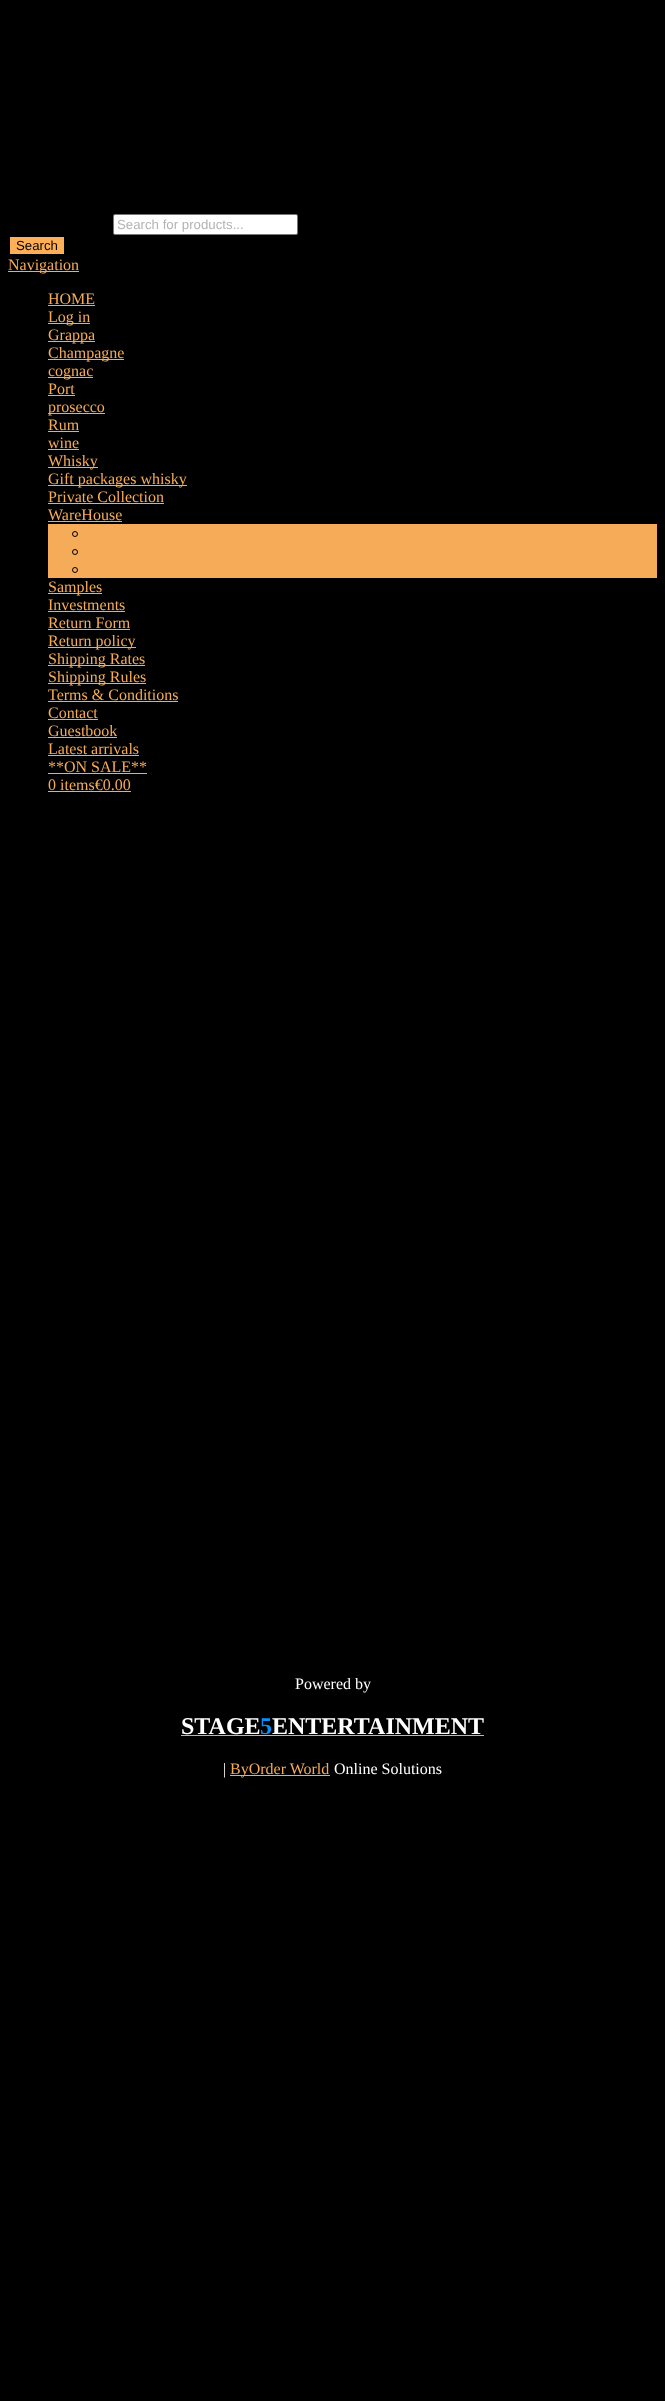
<svg xmlns="http://www.w3.org/2000/svg" width="665" height="2401">
	<rect width="100%" height="100%" fill="#000000" />
	<rect x="113.5" y="214.5" width="184" height="20" rx="1.5" fill="#FFFFFF" stroke="#767676" />
	<text x="117" y="229" font-family="Liberation Sans" font-size="13.25" fill="#B3B3B3">Search for products...</text>
	<rect x="10" y="237" width="54" height="17" fill="#FFB056" />
	<text x="16" y="250" font-family="Liberation Sans" font-size="13.25" fill="#000000">Search</text>
	<rect x="8" y="271" width="71" height="1" fill="#F6AB58" />
	<g font-family="Liberation Serif" font-size="16" fill="#F6AB58">
		<text x="8" y="270">Navigation</text>
		<text x="48" y="304">HOME</text>
	</g>
	<rect x="48" y="305" width="47" height="1" fill="#F6AB58" />
	<rect x="48" y="323" width="42" height="1" fill="#F6AB58" />
	<text x="48" y="322" font-family="Liberation Serif" font-size="16" fill="#F6AB58">Log in</text>
	<rect x="48" y="341" width="47" height="1" fill="#F6AB58" />
	<text x="48" y="340" font-family="Liberation Serif" font-size="16" fill="#F6AB58">Grappa</text>
	<rect x="48" y="359" width="76" height="1" fill="#F6AB58" />
	<text x="48" y="358" font-family="Liberation Serif" font-size="16" fill="#F6AB58">Champagne</text>
	<rect x="48" y="377" width="45" height="1" fill="#F6AB58" />
	<g font-family="Liberation Serif" font-size="16" fill="#F6AB58">
		<text x="48" y="376">cognac</text>
		<text x="48" y="394">Port</text>
	</g>
	<rect x="48" y="395" width="27" height="1" fill="#F6AB58" />
	<rect x="48" y="413" width="57" height="1" fill="#F6AB58" />
	<g font-family="Liberation Serif" font-size="16" fill="#F6AB58">
		<text x="48" y="412">prosecco</text>
		<text x="48" y="430">Rum</text>
	</g>
	<rect x="48" y="431" width="31" height="1" fill="#F6AB58" />
	<text x="48" y="448" font-family="Liberation Serif" font-size="16" fill="#F6AB58">wine</text>
	<rect x="48" y="449" width="31" height="1" fill="#F6AB58" />
	<rect x="48" y="467" width="50" height="1" fill="#F6AB58" />
	<text x="48" y="466" font-family="Liberation Serif" font-size="16" fill="#F6AB58">Whisky</text>
	<rect x="48" y="485" width="139" height="1" fill="#F6AB58" />
	<g font-family="Liberation Serif" font-size="16" fill="#F6AB58">
		<text x="48" y="484">Gift packages whisky</text>
		<text x="48" y="502">Private Collection</text>
	</g>
	<rect x="48" y="503" width="116" height="1" fill="#F6AB58" />
	<text x="48" y="520" font-family="Liberation Serif" font-size="16" fill="#F6AB58">WareHouse</text>
	<rect x="48" y="521" width="74" height="1" fill="#F6AB58" />
	<rect x="48" y="524" width="609" height="54" fill="#F6AB58" />
	<circle cx="75" cy="534" r="2.5" fill="none" stroke="#000000" />
	<circle cx="75" cy="552" r="2.5" fill="none" stroke="#000000" />
	<circle cx="75" cy="570" r="2.5" fill="none" stroke="#000000" />
	<rect x="48" y="593" width="54" height="1" fill="#F6AB58" />
	<g font-family="Liberation Serif" font-size="16" fill="#F6AB58">
		<text x="48" y="592">Samples</text>
		<text x="48" y="610">Investments</text>
	</g>
	<rect x="48" y="611" width="77" height="1" fill="#F6AB58" />
	<text x="48" y="628" font-family="Liberation Serif" font-size="16" fill="#F6AB58">Return Form</text>
	<rect x="48" y="629" width="82" height="1" fill="#F6AB58" />
	<rect x="48" y="647" width="88" height="1" fill="#F6AB58" />
	<text x="48" y="646" font-family="Liberation Serif" font-size="16" fill="#F6AB58">Return policy</text>
	<rect x="48" y="665" width="97" height="1" fill="#F6AB58" />
	<text x="48" y="664" font-family="Liberation Serif" font-size="16" fill="#F6AB58">Shipping Rates</text>
	<rect x="48" y="683" width="98" height="1" fill="#F6AB58" />
	<g font-family="Liberation Serif" font-size="16" fill="#F6AB58">
		<text x="48" y="682">Shipping Rules</text>
		<text x="48" y="700">Terms &amp; Conditions</text>
	</g>
	<rect x="48" y="701" width="130" height="1" fill="#F6AB58" />
	<text x="48" y="718" font-family="Liberation Serif" font-size="16" fill="#F6AB58">Contact</text>
	<rect x="48" y="719" width="50" height="1" fill="#F6AB58" />
	<text x="48" y="736" font-family="Liberation Serif" font-size="16" fill="#F6AB58">Guestbook</text>
	<rect x="48" y="737" width="69" height="1" fill="#F6AB58" />
	<text x="48" y="754" font-family="Liberation Serif" font-size="16" fill="#F6AB58">Latest arrivals</text>
	<rect x="48" y="755" width="91" height="1" fill="#F6AB58" />
	<text x="48" y="772" font-family="Liberation Serif" font-size="16" fill="#F6AB58">**ON SALE**</text>
	<rect x="48" y="773" width="99" height="1" fill="#F6AB58" />
	<text x="48" y="790" font-family="Liberation Serif" font-size="16" fill="#F6AB58">0 items€0.00</text>
	<rect x="48" y="791" width="83" height="1" fill="#F6AB58" />
	<text x="295" y="1689" font-family="Liberation Serif" font-size="16" fill="#FFFFFF">Powered by</text>
	<text x="181" y="1734" font-family="Liberation Serif" font-size="24" font-weight="700" fill="#FFFFFF">STAGE</text>
	<rect x="181" y="1735" width="303" height="1" fill="#F6AB58" />
	<text x="260" y="1734" font-family="Liberation Serif" font-size="24" font-weight="700" fill="#0094FF">5</text>
	<text x="272" y="1734" font-family="Liberation Serif" font-size="24" font-weight="700" fill="#FFFFFF">ENTERTAINMENT</text>
	<text x="223" y="1774" font-family="Liberation Serif" font-size="16" fill="#FFFFFF">|</text>
	<rect x="230" y="1775" width="100" height="1" fill="#F6AB58" />
	<text x="230" y="1774" font-family="Liberation Serif" font-size="16" fill="#F6AB58">ByOrder World</text>
	<text x="334" y="1774" font-family="Liberation Serif" font-size="16" fill="#FFFFFF">Online Solutions</text>
</svg>
